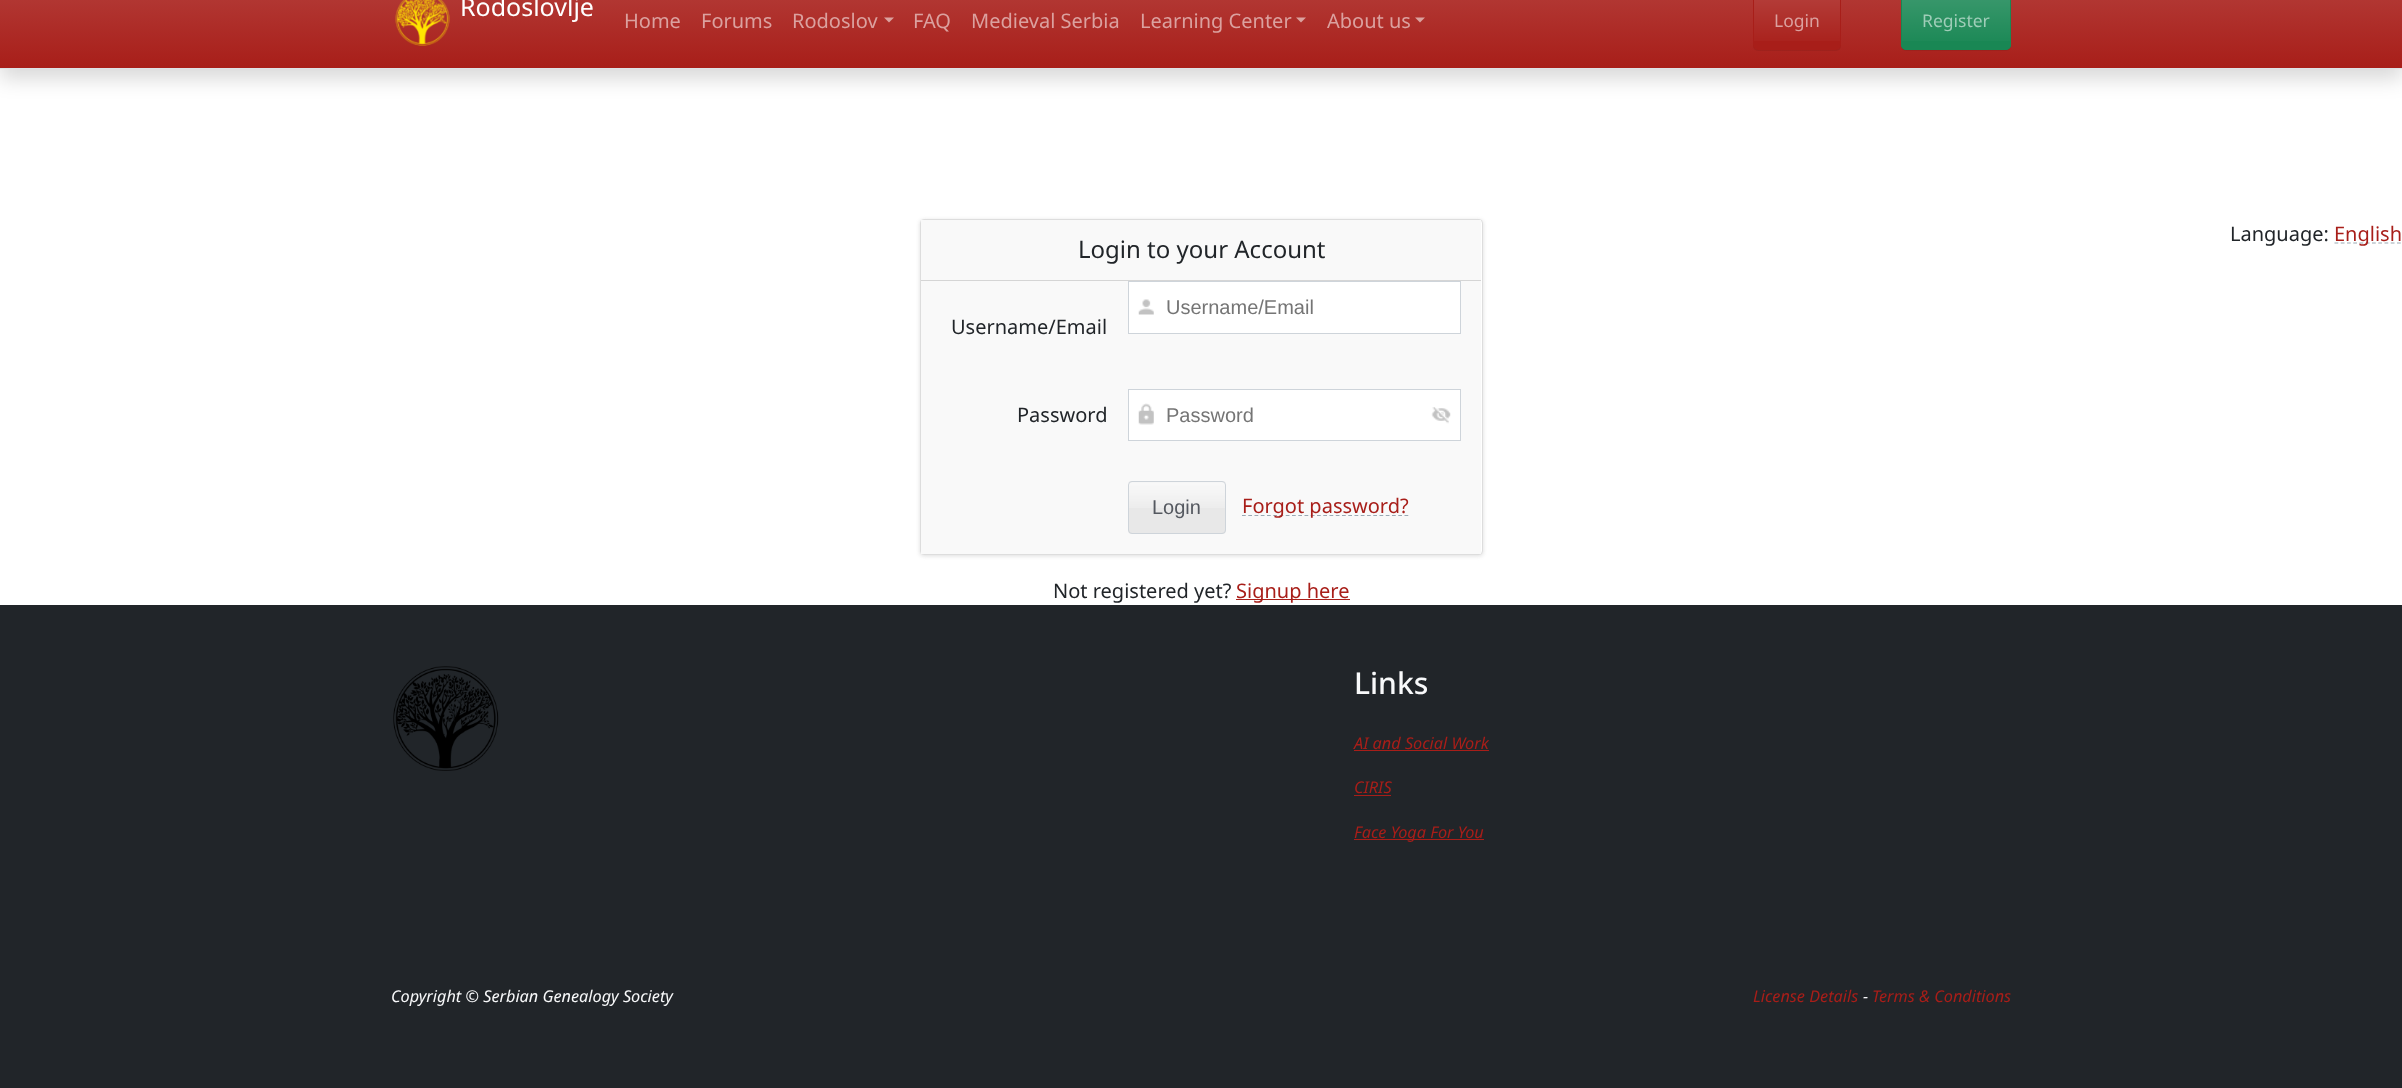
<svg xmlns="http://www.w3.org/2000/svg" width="2402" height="1088">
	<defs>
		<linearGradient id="g1" gradientUnits="userSpaceOnUse" x1="1201" y1="-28" x2="1201" y2="68"><stop offset="0" stop-color="#B5403C" /><stop offset="1" stop-color="#A81E19" /></linearGradient>
		<linearGradient id="g2" gradientUnits="userSpaceOnUse" x1="1797" y1="-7.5" x2="1797" y2="49"><stop offset="0" stop-color="#FFFFFF" stop-opacity="0.15" /><stop offset="1" stop-color="#FFFFFF" stop-opacity="0" /></linearGradient>
		<linearGradient id="g3" gradientUnits="userSpaceOnUse" x1="1956" y1="-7.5" x2="1956" y2="49"><stop offset="0" stop-color="#FFFFFF" stop-opacity="0.15" /><stop offset="1" stop-color="#FFFFFF" stop-opacity="0" /></linearGradient>
	</defs>
	<rect width="100%" height="100%" fill="#FFFFFF" />
	<rect x="0" y="-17" width="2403" height="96" fill="#000000" fill-opacity="0.15" filter="blur(10px)" />
	<rect x="0" y="68" width="2402" height="1" fill="#DEE2E6" />
	<rect x="0" y="0" width="2402" height="68" fill="url(#g1)" />
	<image x="395" y="0" width="55" height="46" href="assets/img1.png" />
	<text x="460" y="16" font-family="Noto Sans" font-size="25" fill="#FFFFFF">Rodoslovlje</text>
	<g font-family="Noto Sans" font-size="20" fill="#DBA19F">
		<text x="624" y="28">Home</text>
		<text x="701" y="28">Forums</text>
		<text x="792" y="28">Rodoslov</text>
	</g>
	<path d="M884 17.5H894L889 22.5Z" fill="#DBA29F" />
	<g font-family="Noto Sans" font-size="20" fill="#DBA19F">
		<text x="913" y="28">FAQ</text>
		<text x="971" y="28">Medieval Serbia</text>
		<text x="1140" y="28">Learning Center</text>
	</g>
	<path d="M1296 17.5H1306L1301 22.5Z" fill="#DBA29F" />
	<text x="1327" y="28" font-family="Noto Sans" font-size="20" fill="#DBA19F">About us</text>
	<path d="M1415 17.5H1425L1420 22.5Z" fill="#DBA29F" />
	<rect x="1753" y="-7" width="88" height="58" rx="5" fill="#000000" fill-opacity="0.07" filter="blur(0.5px)" />
	<rect x="1753" y="-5" width="88" height="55" rx="5" fill="#A81E19" />
	<rect x="1754" y="0" width="86" height="41" fill="url(#g2)" />
	<text x="1774" y="27" font-family="Noto Sans" font-size="17.5" fill="#DBA19F">Login</text>
	<rect x="1901" y="-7" width="110" height="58" rx="5" fill="#000000" fill-opacity="0.07" filter="blur(0.5px)" />
	<rect x="1901" y="-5" width="110" height="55" rx="5" fill="#198754" />
	<rect x="1902" y="0" width="108" height="41" fill="url(#g3)" />
	<rect x="1901.5" y="-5.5" width="109" height="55" rx="4.5" fill="none" stroke="#198754" />
	<text x="1922" y="27" font-family="Noto Sans" font-size="17.5" fill="#9FCDB8">Register</text>
	<text x="2230" y="241" font-family="Noto Sans" font-size="20" fill="#212529">Language:</text>
	<path d="M2334.5 243H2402.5" fill="none" stroke="#9AA9B3" stroke-width="1.2" stroke-dasharray="3.75 2.5" />
	<text x="2334" y="241" font-family="Noto Sans" font-size="20" fill="#A81E19">English</text>
	<rect x="920" y="220" width="563" height="336" rx="4" fill="#DDDDDD" filter="blur(2px)" />
	<rect x="920.5" y="219.5" width="562" height="335" rx="3.5" fill="#FFFFFF" stroke="#DDDDDD" />
	<rect x="921" y="220" width="560" height="334" fill="#F9F9F9" />
	<rect x="921" y="280" width="560" height="1" fill="#D5D5D5" />
	<text x="1078" y="258" font-family="Noto Sans" font-size="24" fill="#212529">Login to your Account</text>
	<rect x="1129" y="282" width="331" height="51" fill="#FFFFFF" />
	<image x="1138" y="299" width="16" height="16" href="assets/img2.png" />
	<rect x="1128.5" y="281.5" width="332" height="52" fill="none" stroke="#CED4DA" />
	<text x="1166" y="314" font-family="Liberation Sans" font-size="20" fill="#757575">Username/Email</text>
	<g font-family="Noto Sans" font-size="20" fill="#212529">
		<text x="951" y="334">Username/Email</text>
		<text x="1017" y="422">Password</text>
	</g>
	<rect x="1129" y="390" width="331" height="50" fill="#FFFFFF" />
	<image x="1138" y="403" width="16" height="22" href="assets/img3.png" />
	<rect x="1128.5" y="389.5" width="332" height="51" fill="none" stroke="#CED4DA" />
	<text x="1166" y="422" font-family="Liberation Sans" font-size="20" fill="#757575">Password</text>
	<image x="1431" y="407" width="20" height="17" href="assets/img4.png" />
	<rect x="1128" y="481" width="98" height="53" rx="4" fill="#E8E8E8" />
	<image x="1128" y="482" width="98" height="26" href="assets/img5.png" />
	<rect x="1128.5" y="481.5" width="97" height="52" rx="3.5" fill="none" stroke="#CED4DA" />
	<text x="1152" y="514" font-family="Liberation Sans" font-size="20" fill="#555960">Login</text>
	<path d="M1242 515.5H1408.5" fill="none" stroke="#9AA9B3" stroke-width="1.2" stroke-dasharray="3.75 2.5" />
	<text x="1242" y="513" font-family="Noto Sans" font-size="20" fill="#A81E19">Forgot password?</text>
	<text x="1053" y="598" font-family="Noto Sans" font-size="20" fill="#212529">Not registered yet?</text>
	<rect x="1236" y="599" width="114" height="1" fill="#A81E19" />
	<text x="1236" y="598" font-family="Noto Sans" font-size="20" fill="#A81E19">Signup here</text>
	<rect x="0" y="605" width="2402" height="483" fill="#212529" />
	<image x="393" y="666" width="106" height="105" href="assets/img6.png" />
	<text x="1354" y="694" font-family="Noto Sans" font-size="30" font-weight="500" fill="#F8F9FA">Links</text>
	<text x="1354" y="749" font-family="Noto Sans" font-size="16.25" font-style="italic" fill="#A81E19">AI and Social Work</text>
	<rect x="1354" y="750" width="135" height="1" fill="#A81E19" />
	<text x="1354" y="793" font-family="Noto Sans" font-size="16.25" font-style="italic" fill="#A81E19">CIRIS</text>
	<rect x="1354" y="795" width="37" height="1" fill="#A81E19" />
	<rect x="1354" y="839" width="130" height="1" fill="#A81E19" />
	<text x="1354" y="838" font-family="Noto Sans" font-size="16.25" font-style="italic" fill="#A81E19">Face Yoga For You</text>
	<text x="391" y="1002" font-family="Noto Sans" font-size="16.25" font-style="italic" fill="#F8F9FA">Copyright © Serbian Genealogy Society</text>
	<text x="1753" y="1002" font-family="Noto Sans" font-size="16.25" font-style="italic" fill="#A81E19">License Details</text>
	<text x="1863" y="1002" font-family="Noto Sans" font-size="16.25" font-style="italic" fill="#F8F9FA">-</text>
	<text x="1872" y="1002" font-family="Noto Sans" font-size="16.25" font-style="italic" fill="#A81E19">Terms &amp; Conditions</text>
</svg>
